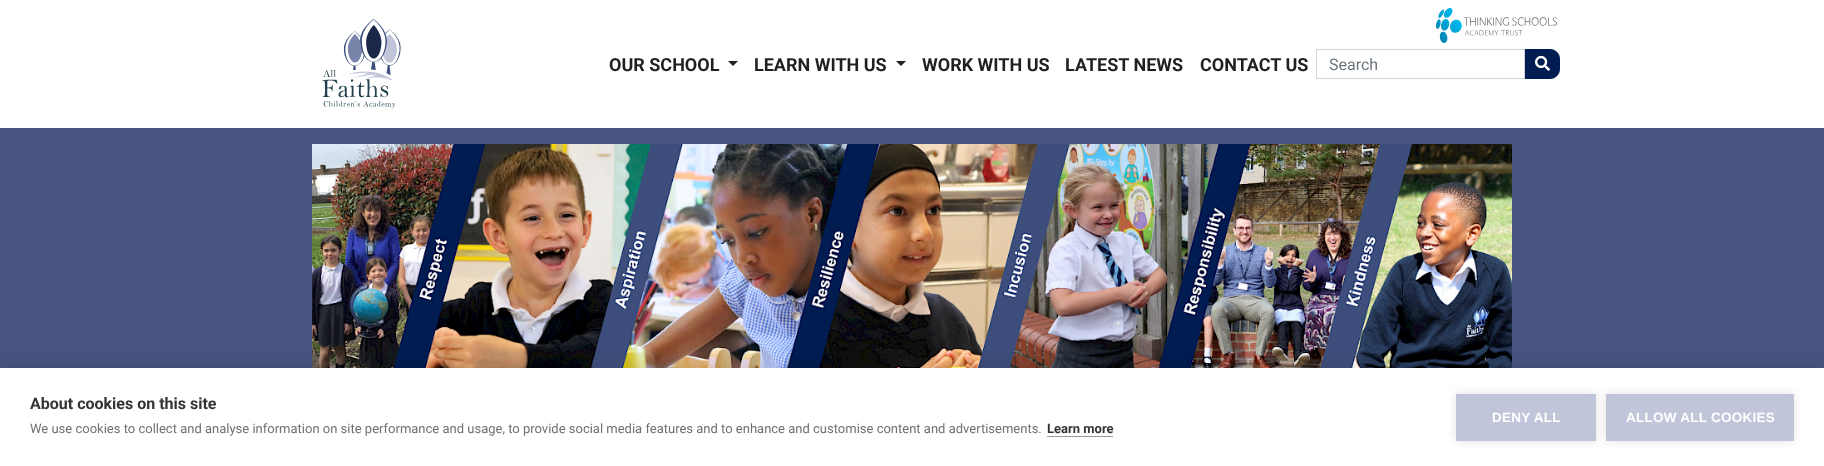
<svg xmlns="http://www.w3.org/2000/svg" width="1824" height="466">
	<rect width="100%" height="100%" fill="#FFFFFF" />
	<image x="322" y="19" width="79" height="90" href="assets/img1.png" />
	<text x="609" y="71" font-family="Roboto" font-size="18" font-weight="700" fill="#221F20">OUR SCHOOL</text>
	<path d="M728 61H738L733 66Z" fill="#221F20" />
	<text x="754" y="71" font-family="Roboto" font-size="18" font-weight="700" fill="#221F20">LEARN WITH US</text>
	<path d="M896 61H906L901 66Z" fill="#221F20" />
	<g font-family="Roboto" font-size="18" font-weight="700" fill="#221F20">
		<text x="922" y="71">WORK WITH US</text>
		<text x="1065" y="71">LATEST NEWS</text>
		<text x="1200" y="71">CONTACT US</text>
	</g>
	<rect x="1316.5" y="49.5" width="208" height="29" fill="none" stroke="#CED4DA" />
	<text x="1329" y="70" font-family="Roboto" font-size="16" fill="#6C757D">Search</text>
	<path d="M1525 49H1550C1555.5 49 1560 53.5 1560 59V69C1560 74.5 1555.5 79 1550 79H1525Z" fill="#001D52" />
	<image x="1535" y="55" width="15" height="16" href="assets/img2.png" />
	<image x="1436" y="8" width="121" height="35" href="assets/img3.png" />
	<rect x="0" y="128" width="1824" height="240" fill="#46547F" />
	<image x="312" y="144" width="1200" height="224" href="assets/img4.png" />
	<rect x="0" y="368" width="1824" height="98" fill="#000000" fill-opacity="0.1" filter="blur(10px)" />
	<rect x="0" y="368" width="1824" height="98" fill="#FFFFFF" />
	<text x="30" y="409" font-family="Roboto" font-size="16" font-weight="700" fill="#333333">About cookies on this site</text>
	<text x="30" y="433" font-family="Roboto" font-size="13" fill="#707070">We use cookies to collect and analyse information on site performance and usage, to provide social media features and to enhance and customise content and advertisements.</text>
	<text x="1047" y="433" font-family="Roboto" font-size="13" font-weight="700" fill="#333333">Learn more</text>
	<rect x="1047" y="436" width="66" height="1" fill="#999999" />
	<rect x="1456" y="394" width="140" height="47" fill="#000000" fill-opacity="0.12" filter="blur(5px)" />
	<rect x="1456" y="394" width="140" height="47" fill="#C0C5D9" />
	<text x="1492" y="422" font-family="Liberation Sans" font-size="13.5" font-weight="700" letter-spacing="0.25" fill="#FFFFFF">DENY ALL</text>
	<rect x="1606" y="394" width="188" height="47" fill="#000000" fill-opacity="0.12" filter="blur(5px)" />
	<rect x="1606" y="394" width="188" height="47" fill="#C0C5D9" />
	<text x="1626" y="422" font-family="Liberation Sans" font-size="13.5" font-weight="700" letter-spacing="0.25" fill="#FFFFFF">ALLOW ALL COOKIES</text>
</svg>
